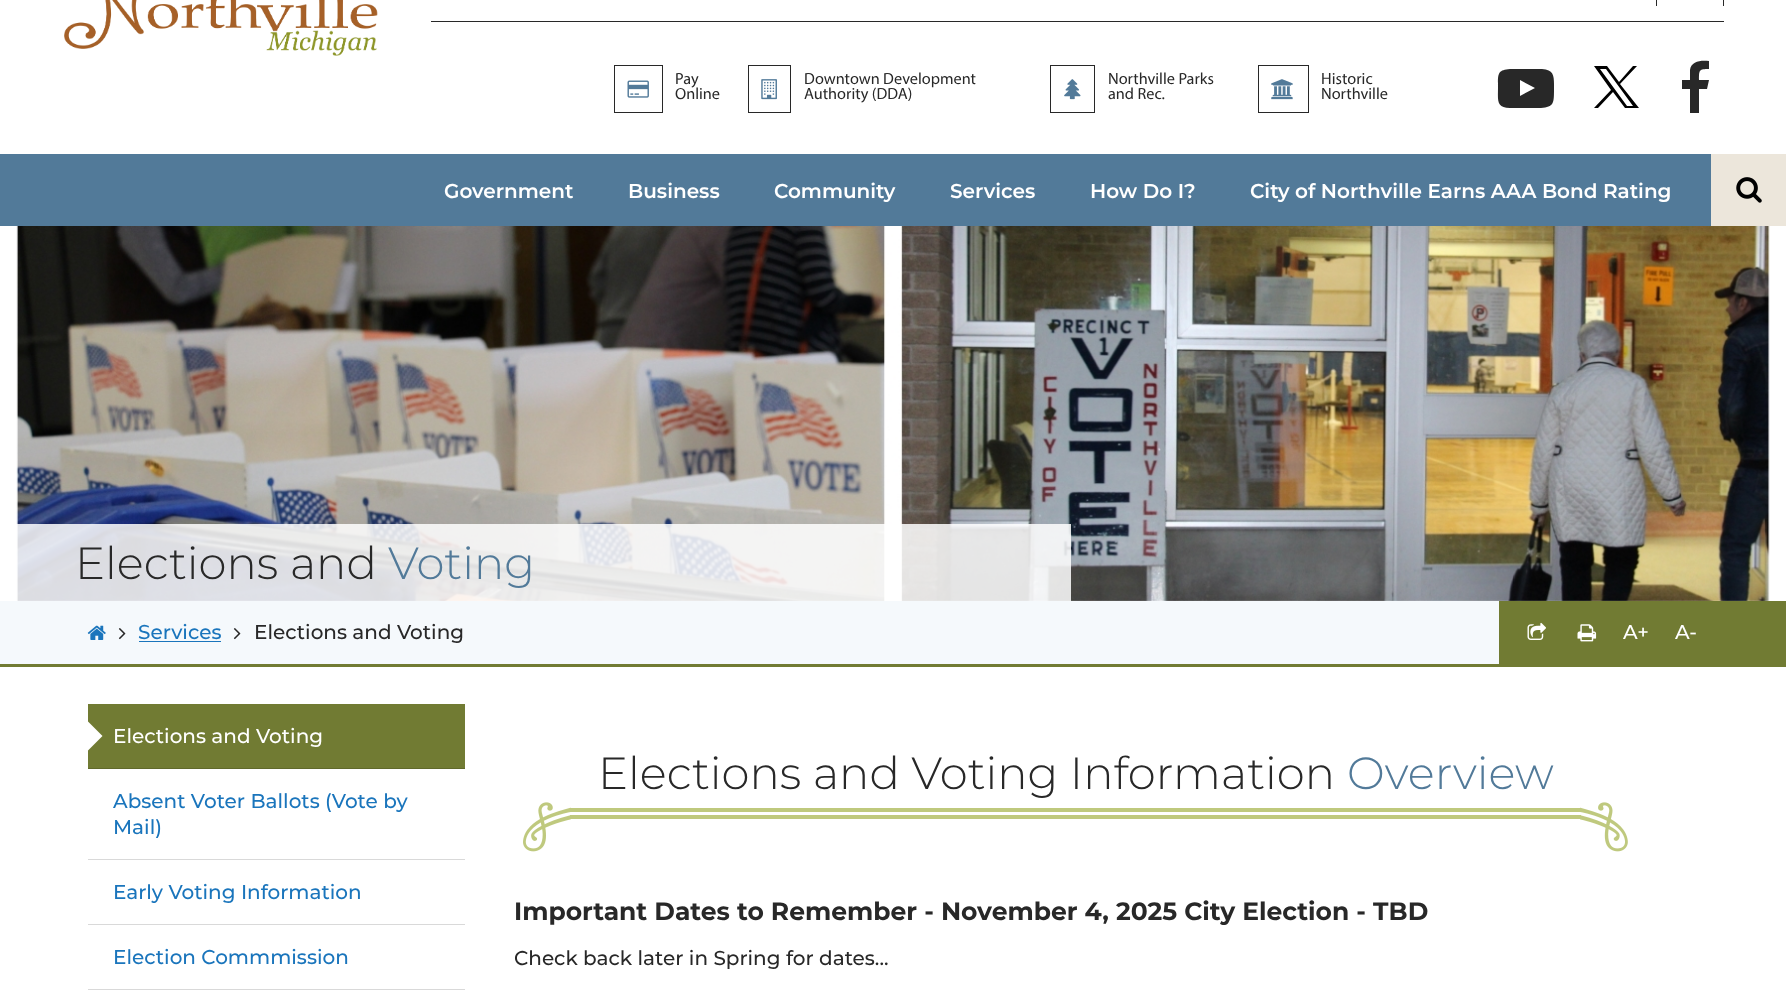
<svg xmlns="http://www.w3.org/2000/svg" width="1786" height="1000">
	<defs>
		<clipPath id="clip1"><rect x="88" y="704" width="377" height="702" /></clipPath>
	</defs>
	<rect width="100%" height="100%" fill="#FFFFFF" />
	<image x="64" y="0" width="314" height="56" href="assets/img1.png" />
	<rect x="431" y="21" width="1293" height="1" fill="#282828" />
	<rect x="1656" y="0" width="1" height="6" fill="#282828" />
	<rect x="1723" y="0" width="1" height="6" fill="#282828" />
	<rect x="614.5" y="65.5" width="48" height="47" fill="none" stroke="#282828" />
	<image x="627" y="80" width="22" height="18" href="assets/img2.png" />
	<g font-family="Myriad" font-size="16.25" fill="#282828">
		<text x="675" y="84">Pay</text>
		<text x="675" y="99">Online</text>
	</g>
	<rect x="748.5" y="65.5" width="42" height="47" fill="none" stroke="#282828" />
	<image x="761" y="79" width="16" height="21" href="assets/img3.png" />
	<g font-family="Myriad" font-size="16.25" fill="#282828">
		<text x="804" y="84">Downtown Development</text>
		<text x="804" y="99">Authority (DDA)</text>
	</g>
	<rect x="1050.5" y="65.5" width="44" height="47" fill="none" stroke="#282828" />
	<image x="1064" y="79" width="17" height="21" href="assets/img4.png" />
	<g font-family="Myriad" font-size="16.25" fill="#282828">
		<text x="1108" y="84">Northville Parks</text>
		<text x="1108" y="99">and Rec.</text>
	</g>
	<rect x="1258.5" y="65.5" width="50" height="47" fill="none" stroke="#282828" />
	<image x="1271" y="79" width="22" height="21" href="assets/img5.png" />
	<g font-family="Myriad" font-size="16.25" fill="#282828">
		<text x="1321" y="84">Historic</text>
		<text x="1321" y="99">Northville</text>
	</g>
	<path d="M1520 96L1535 88L1520 80ZM1526 69H1542C1555 70 1554 77 1554 89C1554 103 1554 107 1541 108H1510C1496 108 1498 100 1498 88C1498 74 1497 70 1510 69Z" fill="#282828" />
	<path d="M1594 66L1611 90L1594 108H1598L1613 92L1625 108H1639L1620 84L1637 66H1633L1619 82L1607 66ZM1600 69H1606L1633 106H1627Z" fill="#000000" />
	<path d="M1709 61V69C1699 69 1699 70 1699 80H1709L1707 89H1699V113H1690V89H1682V80H1690V70C1691 61 1701 60 1709 61Z" fill="#282828" />
	<rect x="0" y="154" width="1711" height="72" fill="#527A99" />
	<g font-family="Montserrat" font-size="20" font-weight="600" fill="#FFFFFF">
		<text x="444" y="198">Government</text>
		<text x="628" y="198">Business</text>
		<text x="774" y="198">Community</text>
		<text x="950" y="198">Services</text>
		<text x="1090" y="198">How Do I?</text>
		<text x="1250" y="198">City of Northville Earns AAA Bond Rating</text>
	</g>
	<rect x="1711" y="154" width="75" height="72" fill="#ECE6DB" />
	<image x="1736" y="177" width="26" height="26" href="assets/img6.png" />
	<image x="16" y="226" width="1754" height="375" href="assets/img7.png" />
	<rect x="16" y="524" width="1055" height="77" fill="#FFFFFF" fill-opacity="0.85" />
	<text x="75" y="579" font-family="Montserrat" font-size="45" font-weight="300" fill="#282828">Elections and</text>
	<text x="388" y="579" font-family="Montserrat" font-size="45" font-weight="300" fill="#527A99">Voting</text>
	<rect x="0" y="601" width="1499" height="63" fill="#F5F9FC" />
	<rect x="0" y="664" width="1786" height="3" fill="#717B33" />
	<image x="87" y="625" width="19" height="15" href="assets/img8.png" />
	<image x="118" y="628" width="8" height="12" href="assets/img9.png" />
	<text x="138" y="639" font-family="Montserrat" font-size="20" font-weight="500" fill="#1A75BC">Services</text>
	<rect x="139" y="641" width="82" height="1" fill="#1A75BC" />
	<image x="233" y="628" width="8" height="12" href="assets/img9.png" />
	<text x="254" y="639" font-family="Montserrat" font-size="20" font-weight="500" fill="#282828">Elections and Voting</text>
	<rect x="1499" y="601" width="287" height="63" fill="#717B33" />
	<image x="1527" y="622" width="19" height="18" href="assets/img10.png" />
	<image x="1577" y="624" width="20" height="18" href="assets/img11.png" />
	<g font-family="Montserrat" font-size="20" font-weight="500" fill="#FFFFFF">
		<text x="1623" y="639">A+</text>
		<text x="1675" y="639">A-</text>
	</g>
	<rect x="88" y="704" width="377" height="64" fill="#717B33" />
	<rect x="88" y="768" width="377" height="1" fill="#60692B" />
	<g clip-path="url(#clip1)">
		<path d="M87.5 751V721L102.5 736Z" fill="#FFFFFF" />
	</g>
	<text x="113" y="743" font-family="Montserrat" font-size="20" font-weight="500" fill="#FFFFFF">Elections and Voting</text>
	<rect x="88" y="859" width="377" height="1" fill="#D9D9D9" />
	<g font-family="Montserrat" font-size="20" font-weight="500" fill="#1A75BC">
		<text x="113" y="808">Absent Voter Ballots (Vote by</text>
		<text x="113" y="834">Mail)</text>
	</g>
	<rect x="88" y="924" width="377" height="1" fill="#D9D9D9" />
	<text x="113" y="899" font-family="Montserrat" font-size="20" font-weight="500" fill="#1A75BC">Early Voting Information</text>
	<rect x="88" y="989" width="377" height="1" fill="#D9D9D9" />
	<text x="113" y="964" font-family="Montserrat" font-size="20" font-weight="500" fill="#1A75BC">Election Commmission</text>
	<text x="598" y="789" font-family="Montserrat" font-size="45" font-weight="300" fill="#282828">Elections and Voting Information</text>
	<text x="1347" y="789" font-family="Montserrat" font-size="45" font-weight="300" fill="#527A99">Overview</text>
	<image x="523" y="802" width="48" height="50" href="assets/img12.png" />
	<rect x="570" y="808" width="1011" height="4" fill="#BFC97D" />
	<rect x="570" y="815" width="1011" height="4" fill="#BFC97D" />
	<image x="1580" y="802" width="48" height="50" href="assets/img13.png" />
	<text x="514" y="920" font-family="Montserrat" font-size="25" font-weight="700" fill="#282828">Important Dates to Remember - November 4, 2025 City Election - TBD</text>
	<text x="514" y="965" font-family="Montserrat" font-size="20" font-weight="500" fill="#282828">Check back later in Spring for dates...</text>
</svg>
